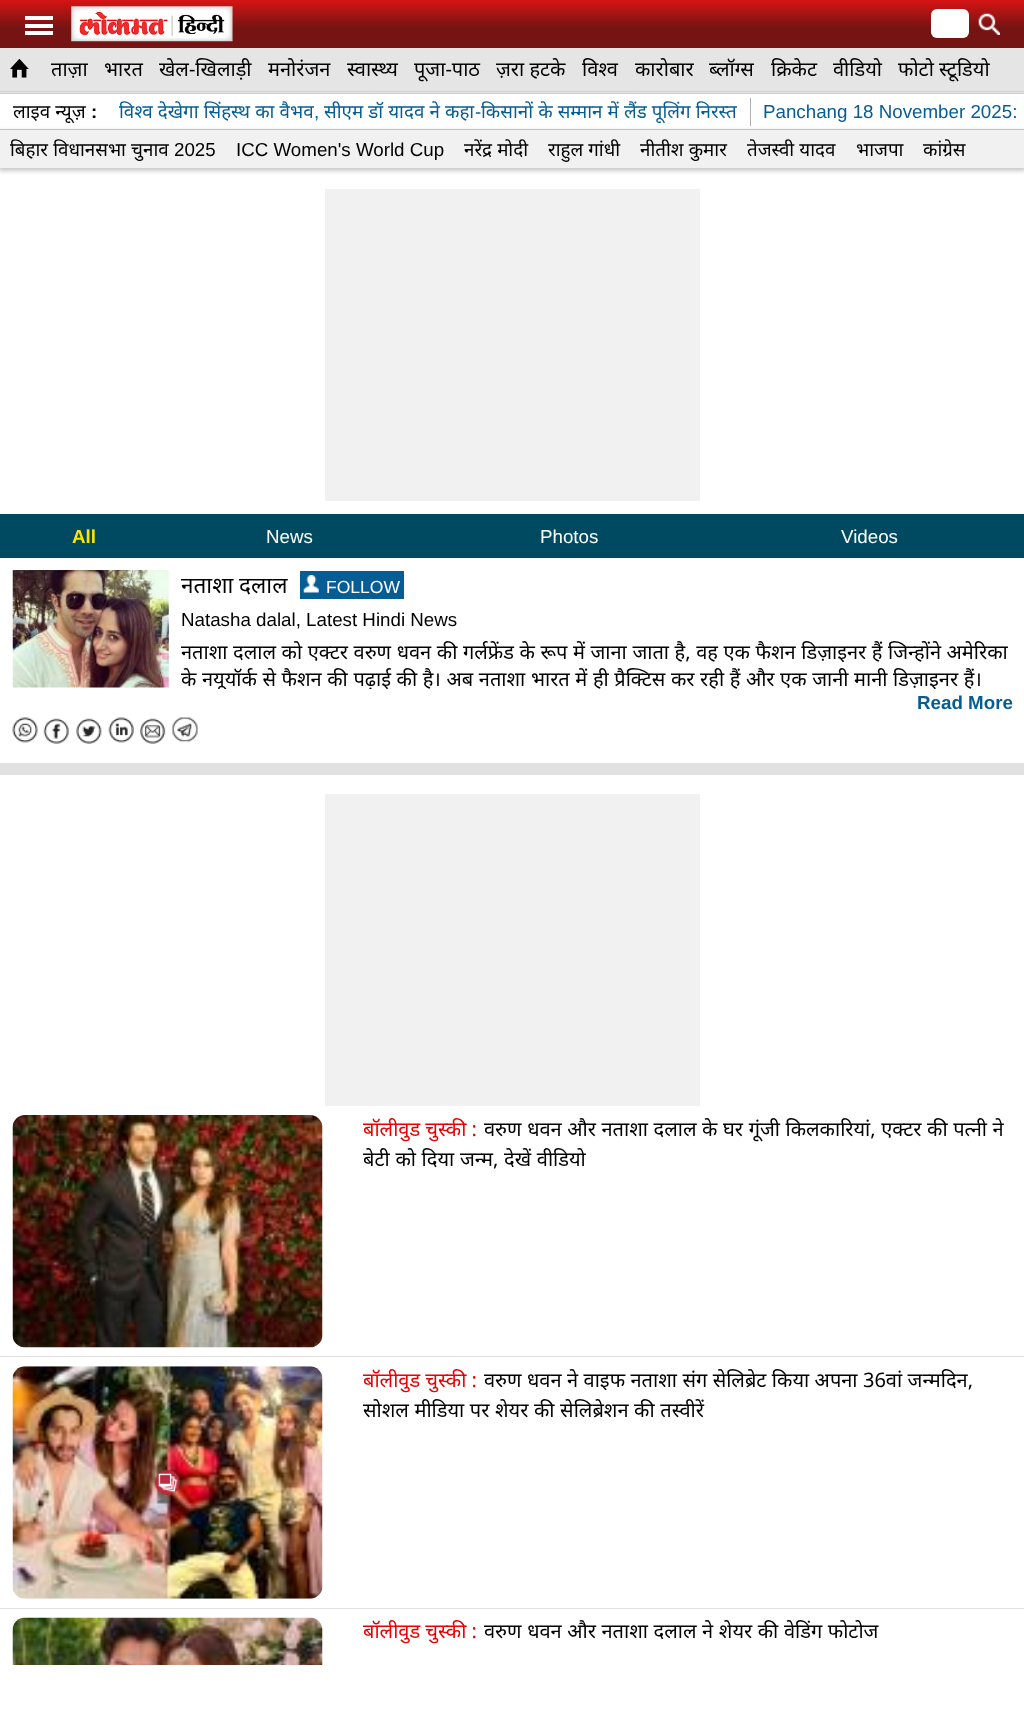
<svg xmlns="http://www.w3.org/2000/svg" width="1024" height="1727">
	<defs>
		<linearGradient id="g1" gradientUnits="userSpaceOnUse" x1="513" y1="48" x2="513" y2="0"><stop offset="0" stop-color="#761413" /><stop offset="0.43" stop-color="#761413" /><stop offset="1" stop-color="#D61414" /></linearGradient>
		<clipPath id="clip1"><rect x="13" y="570" width="1000" height="119" /></clipPath>
		<clipPath id="clip2"><rect x="363" y="1115" width="650" height="90" /></clipPath>
		<clipPath id="clip3"><rect x="363" y="1366" width="650" height="90" /></clipPath>
		<clipPath id="clip4"><rect x="363" y="1618" width="650" height="90" /></clipPath>
	</defs>
	<rect width="100%" height="100%" fill="#FFFFFF" />
	<rect x="0" y="0" width="1024" height="48" fill="url(#g1)" />
	<rect x="25" y="16" width="28" height="4" fill="#FFFFFF" />
	<rect x="25" y="24" width="28" height="4" fill="#FFFFFF" />
	<rect x="25" y="31" width="28" height="4" fill="#FFFFFF" />
	<image x="71" y="6" width="162" height="36" href="assets/img1.png" />
	<rect x="931" y="9" width="38" height="29" rx="6" fill="#FFFFFF" />
	<image x="978" y="13" width="22" height="22" href="assets/img2.png" />
	<rect x="0" y="48" width="1024" height="45" fill="#E5E5E5" />
	<rect x="0" y="91" width="1024" height="1" fill="#D2CFCF" />
	<image x="10" y="59" width="19" height="19" href="assets/img3.png" />
	<g font-family="Noto Sans" font-size="20" fill="#000000">
		<text x="51" y="76">ताज़ा</text>
		<text x="104" y="76">भारत</text>
		<text x="159" y="76">खेल-खिलाड़ी</text>
		<text x="268" y="76">मनोरंजन</text>
		<text x="347" y="76">स्वास्थ्य</text>
		<text x="414" y="76">पूजा-पाठ</text>
		<text x="496" y="76">ज़रा हटके</text>
		<text x="582" y="76">विश्व</text>
		<text x="635" y="76">कारोबार</text>
		<text x="709" y="76">ब्लॉग्स</text>
		<text x="771" y="76">क्रिकेट</text>
		<text x="833" y="76">वीडियो</text>
		<text x="898" y="76">फोटो स्टूडियो</text>
	</g>
	<rect x="0" y="93" width="1024" height="1" fill="#CCCCCC" />
	<rect x="0" y="129" width="1024" height="1" fill="#CCCCCC" />
	<text x="13" y="118" word-spacing="0.25" font-family="Noto Sans" font-size="18.75" fill="#000000">लाइव न्यूज़</text>
	<text x="91" y="118" font-family="Liberation Sans" font-size="18.75" font-weight="700" fill="#000000">:</text>
	<rect x="750" y="98" width="1" height="28" fill="#AFAFAF" />
	<g font-family="Noto Sans" font-size="18.75" fill="#065D93">
		<text x="119" y="118" word-spacing="0.25">विश्व देखेगा सिंहस्थ का वैभव</text>
		<text x="324" y="118" word-spacing="0.25">सीएम डॉ यादव ने कहा</text>
	</g>
	<text x="475" y="118" font-family="Liberation Sans" font-size="18.75" fill="#065D93">-</text>
	<text x="481" y="118" word-spacing="0.25" font-family="Noto Sans" font-size="18.75" fill="#065D93">किसानों के सम्मान में लैंड पूलिंग निरस्त</text>
	<g font-family="Liberation Sans" font-size="18.75" fill="#065D93">
		<text x="314" y="118">,</text>
		<text x="763" y="118">Panchang 18 November 2025:</text>
	</g>
	<rect x="-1" y="131" width="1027" height="40" fill="#000000" fill-opacity="0.21" filter="blur(2px)" />
	<rect x="0" y="130" width="1024" height="38" fill="#F1F1F1" />
	<text x="10" y="156" word-spacing="0.25" font-family="Noto Sans" font-size="18.75" fill="#000000">बिहार विधानसभा चुनाव</text>
	<g font-family="Liberation Sans" font-size="18.75" fill="#000000">
		<text x="174" y="156">2025</text>
		<text x="236" y="156">ICC Women's World Cup</text>
	</g>
	<g font-family="Noto Sans" font-size="18.75" fill="#000000">
		<text x="464" y="156" word-spacing="0.25">नरेंद्र मोदी</text>
		<text x="548" y="156" word-spacing="0.25">राहुल गांधी</text>
		<text x="640" y="156" word-spacing="0.25">नीतीश कुमार</text>
		<text x="747" y="156" word-spacing="0.25">तेजस्वी यादव</text>
		<text x="856" y="156">भाजपा</text>
		<text x="923" y="156">कांग्रेस</text>
	</g>
	<rect x="325" y="189" width="375" height="312" fill="#F1F1F1" />
	<rect x="0" y="514" width="1024" height="44" fill="#004A61" />
	<text x="72" y="543" font-family="Liberation Sans" font-size="18.75" font-weight="700" fill="#FFE400">All</text>
	<g font-family="Liberation Sans" font-size="18.75" fill="#FFFFFF">
		<text x="266" y="543">News</text>
		<text x="540" y="543">Photos</text>
		<text x="841" y="543">Videos</text>
	</g>
	<rect x="0" y="763" width="1024" height="12" fill="#E1E1E1" />
	<image x="12" y="570" width="157" height="118" href="assets/img4.png" />
	<text x="181" y="593" font-family="Noto Sans" font-size="22.5" fill="#000000">नताशा दलाल</text>
	<rect x="300" y="571" width="104" height="28" fill="#065D93" />
	<image x="303" y="575" width="16" height="18" href="assets/img5.png" />
	<text x="326" y="593" font-family="Liberation Sans" font-size="17.5" fill="#FFFFFF">FOLLOW</text>
	<text x="181" y="626" font-family="Liberation Sans" font-size="18.75" fill="#000000">Natasha dalal, Latest Hindi News</text>
	<text x="181" y="659" word-spacing="0.4" font-family="Noto Sans" font-size="20" fill="#000000">नताशा दलाल को एक्टर वरुण धवन की गर्लफ्रेंड के रूप में जाना जाता है, वह एक फैशन डिज़ाइनर हैं जिन्होंने अमेरिका</text>
	<g clip-path="url(#clip1)">
		<text x="181" y="686" word-spacing="0.4" font-family="Noto Sans" font-size="20" fill="#000000">के नयूयॉर्क से फैशन की पढ़ाई की है। अब नताशा भारत में ही प्रैक्टिस कर रही हैं और एक जानी मानी डिज़ाइनर हैं।</text>
	</g>
	<text x="917" y="709" font-family="Liberation Sans" font-size="18.75" font-weight="700" fill="#065D93">Read More</text>
	<image x="12" y="717" width="26" height="26" href="assets/img6.png" />
	<image x="43" y="718" width="26" height="26" href="assets/img7.png" />
	<image x="76" y="718" width="26" height="26" href="assets/img8.png" />
	<image x="108" y="717" width="26" height="26" href="assets/img9.png" />
	<image x="140" y="718" width="26" height="26" href="assets/img10.png" />
	<image x="172" y="717" width="26" height="25" href="assets/img11.png" />
	<rect x="325" y="794" width="375" height="312" fill="#F1F1F1" />
	<rect x="0" y="1356" width="1024" height="1" fill="#E1E1E1" />
	<image x="12" y="1115" width="311" height="233" href="assets/img12.png" />
	<g clip-path="url(#clip2)">
		<text x="363" y="1136" font-family="Noto Sans" font-size="20" fill="#E90000">बॉलीवुड चुस्की :</text>
	</g>
	<text x="484" y="1136" word-spacing="0.4" font-family="Noto Sans" font-size="20" fill="#000000">वरुण धवन और नताशा दलाल के घर गूंजी किलकारियां, एक्टर की पत्नी ने</text>
	<g clip-path="url(#clip2)">
		<text x="363" y="1166" word-spacing="0.5" font-family="Noto Sans" font-size="20" fill="#000000">बेटी को दिया जन्म, देखें वीडियो</text>
	</g>
	<rect x="0" y="1608" width="1024" height="1" fill="#E1E1E1" />
	<image x="12" y="1366" width="311" height="233" href="assets/img13.png" />
	<image x="155" y="1470" width="25" height="25" href="assets/img14.png" />
	<g clip-path="url(#clip3)">
		<text x="363" y="1387" font-family="Noto Sans" font-size="20" fill="#E90000">बॉलीवुड चुस्की :</text>
	</g>
	<text x="484" y="1387" word-spacing="0.25" font-family="Noto Sans" font-size="20" fill="#000000">वरुण धवन ने वाइफ नताशा संग सेलिब्रेट किया अपना 36वां जन्मदिन,</text>
	<g clip-path="url(#clip3)">
		<text x="363" y="1417" word-spacing="0.4" font-family="Noto Sans" font-size="20" fill="#000000">सोशल मीडिया पर शेयर की सेलिब्रेशन की तस्वीरें</text>
	</g>
	<image x="12" y="1617" width="311" height="48" href="assets/img15.png" />
	<g clip-path="url(#clip4)">
		<text x="363" y="1638" font-family="Noto Sans" font-size="20" fill="#E90000">बॉलीवुड चुस्की :</text>
	</g>
	<text x="484" y="1638" word-spacing="0.4" font-family="Noto Sans" font-size="20" fill="#000000">वरुण धवन और नताशा दलाल ने शेयर की वेडिंग फोटोज</text>
</svg>
